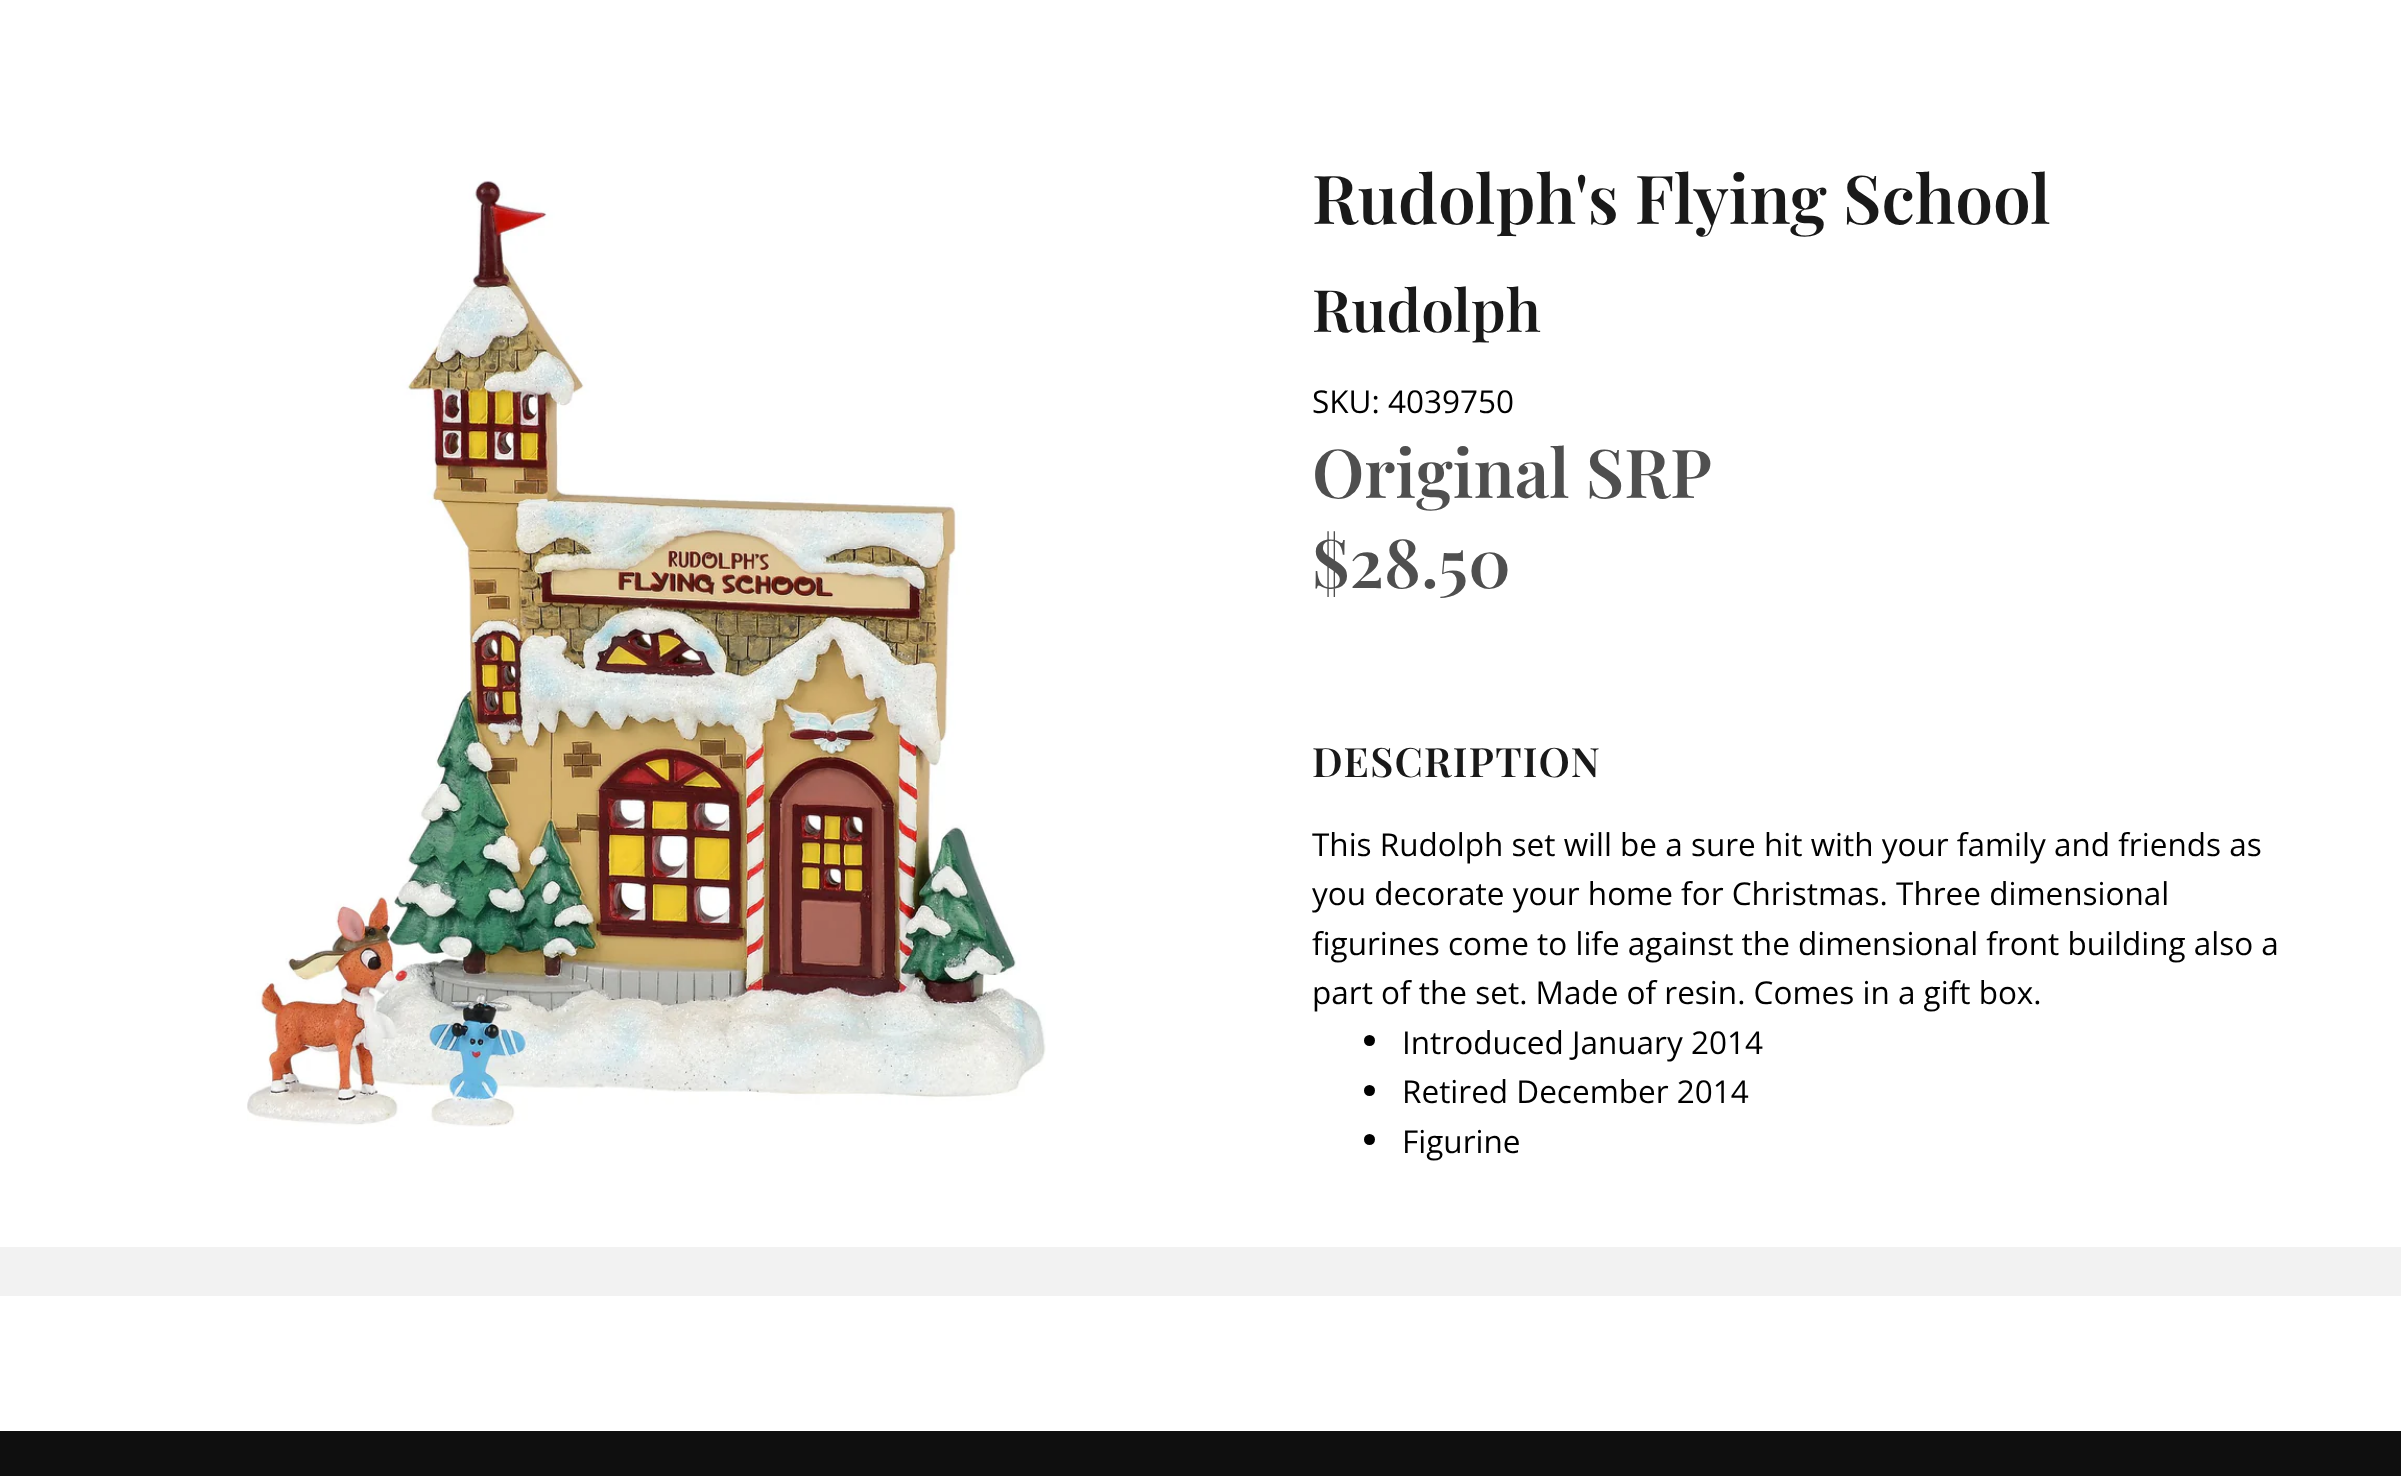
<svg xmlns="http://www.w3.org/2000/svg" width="2401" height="1476">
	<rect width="100%" height="100%" fill="#FFFFFF" />
	<image x="247" y="180" width="799" height="947" href="assets/img1.png" />
	<text x="1312" y="224" font-family="Playfair Display" font-size="67.5" font-weight="600" fill="#191919">Rudolph's Flying School</text>
	<text x="1312" y="332" font-family="Playfair Display" font-size="58.5" font-weight="600" fill="#191919">Rudolph</text>
	<text x="1312" y="413" font-family="Open Sans" font-size="31.5" fill="#000000">SKU: 4039750</text>
	<g font-family="Playfair Display" font-size="67.5" font-weight="600" fill="#4F4F4F">
		<text x="1312" y="498">Original SRP</text>
		<text x="1312" y="588">$28.50</text>
	</g>
	<text x="1312" y="777" font-family="Playfair Display" font-size="40.5" font-weight="600" letter-spacing="1.25" fill="#191919">DESCRIPTION</text>
	<g font-family="Open Sans" font-size="31.5" fill="#000000">
		<text x="1312" y="856">This Rudolph set will be a sure hit with your family and friends as</text>
		<text x="1312" y="905">you decorate your home for Christmas. Three dimensional</text>
		<text x="1312" y="955">figurines come to life against the dimensional front building also a</text>
		<text x="1312" y="1004">part of the set. Made of resin. Comes in a gift box.</text>
	</g>
	<circle cx="1369.5" cy="1040.5" r="5.5" fill="#000000" />
	<text x="1402" y="1054" font-family="Open Sans" font-size="31.5" fill="#000000">Introduced January 2014</text>
	<circle cx="1369.5" cy="1090.5" r="5.5" fill="#000000" />
	<text x="1402" y="1103" font-family="Open Sans" font-size="31.5" fill="#000000">Retired December 2014</text>
	<circle cx="1369.5" cy="1139.5" r="5.5" fill="#000000" />
	<text x="1402" y="1153" font-family="Open Sans" font-size="31.5" fill="#000000">Figurine</text>
	<rect x="0" y="1247" width="2401" height="49" fill="#F2F2F2" />
	<rect x="0" y="1431" width="2401" height="45" fill="#0F0F0F" />
</svg>
